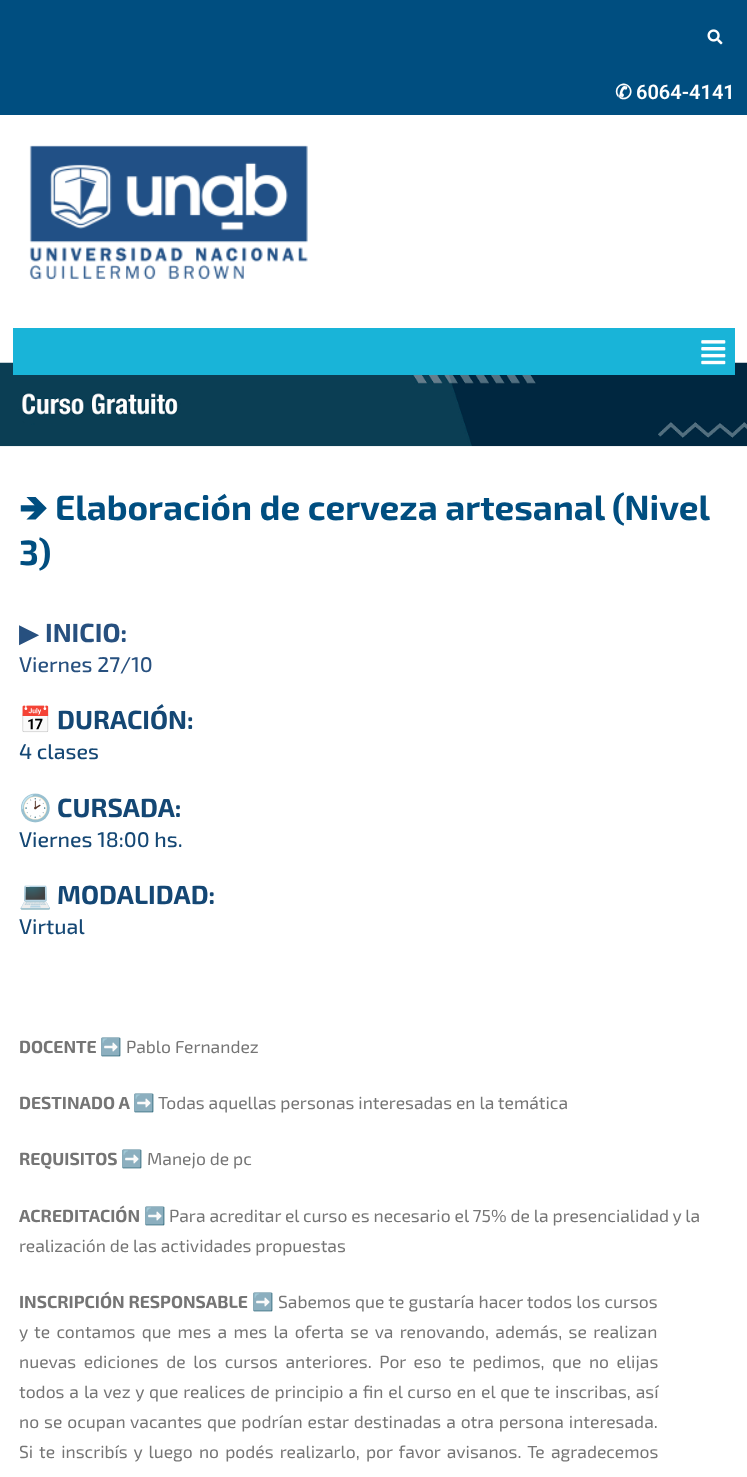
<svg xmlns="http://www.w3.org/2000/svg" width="747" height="1477">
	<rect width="100%" height="100%" fill="#FFFFFF" />
	<rect x="0" y="0" width="747" height="115" fill="#004E80" />
	<image x="707" y="29" width="16" height="16" href="assets/img1.png" />
	<text x="615" y="99" font-family="DejaVu Sans" font-size="20" font-weight="700" fill="#FFFFFF">✆</text>
	<text x="636" y="99" font-family="Roboto" font-size="20" font-weight="600" fill="#FFFFFF">6064-4141</text>
	<image x="29" y="145" width="279" height="135" href="assets/img2.png" />
	<image x="0" y="362" width="747" height="85" href="assets/img4.png" />
	<rect x="13" y="328" width="722" height="47" fill="#19B4D8" />
	<image x="701" y="340" width="25" height="25" href="assets/img3.png" />
	<text x="19" y="520" font-family="'Noto Sans Symbols 2'" font-size="35" font-weight="700" fill="#004E80">🡺</text>
	<g font-family="'Exo 2'" font-size="35" font-weight="700" fill="#004E80">
		<text x="55" y="520">Elaboración de cerveza artesanal (Nivel</text>
		<text x="19" y="565">3)</text>
	</g>
	<text x="19" y="642" font-family="DejaVu Sans" font-size="26.25" fill="#27507F">▶</text>
	<text x="45" y="642" font-family="'Exo 2'" font-size="26.25" font-weight="700" fill="#27507F">INICIO:</text>
	<text x="19" y="672" font-family="'Exo 2'" font-size="21.25" font-weight="500" fill="#27507F">Viernes 27/10</text>
	<text x="19" y="729" font-family="Noto Color Emoji" font-size="26.25" fill="#144774">📅</text>
	<text x="57" y="729" font-family="'Exo 2'" font-size="26.25" font-weight="700" fill="#144774">DURACIÓN:</text>
	<text x="19" y="759" font-family="'Exo 2'" font-size="21.25" font-weight="500" fill="#144774">4 clases</text>
	<text x="19" y="817" font-family="Noto Color Emoji" font-size="26.25" fill="#144774">🕑</text>
	<text x="57" y="817" font-family="'Exo 2'" font-size="26.25" font-weight="700" fill="#144774">CURSADA:</text>
	<text x="19" y="847" font-family="'Exo 2'" font-size="21.25" font-weight="500" fill="#144774">Viernes 18:00 hs.</text>
	<text x="19" y="904" font-family="Noto Color Emoji" font-size="26.25" font-weight="700" fill="#144774">💻</text>
	<text x="57" y="904" font-family="'Exo 2'" font-size="26.25" font-weight="700" fill="#144774">MODALIDAD:</text>
	<text x="19" y="934" font-family="'Exo 2'" font-size="21.25" font-weight="500" fill="#144774">Virtual</text>
	<text x="19" y="1053" font-family="'Exo 2'" font-size="17.5" font-weight="700" fill="#757575">DOCENTE</text>
	<text x="100" y="1053" font-family="Noto Color Emoji" font-size="17.5" font-weight="700" fill="#757575">➡️</text>
	<text x="126" y="1053" font-family="'Exo 2'" font-size="17.5" fill="#757575">Pablo Fernandez</text>
	<text x="19" y="1109" font-family="'Exo 2'" font-size="17.5" font-weight="700" fill="#757575">DESTINADO A</text>
	<text x="133" y="1109" font-family="Noto Color Emoji" font-size="17.5" font-weight="700" fill="#757575">➡️</text>
	<text x="158" y="1109" font-family="'Exo 2'" font-size="17.5" fill="#757575">Todas aquellas personas interesadas en la temática</text>
	<text x="19" y="1165" font-family="'Exo 2'" font-size="17.5" font-weight="700" fill="#757575">REQUISITOS</text>
	<text x="121" y="1165" font-family="Noto Color Emoji" font-size="17.5" font-weight="700" fill="#757575">➡️</text>
	<text x="147" y="1165" font-family="'Exo 2'" font-size="17.5" fill="#757575">Manejo de pc</text>
	<text x="19" y="1222" font-family="'Exo 2'" font-size="17.5" font-weight="700" fill="#757575">ACREDITACIÓN</text>
	<text x="144" y="1222" font-family="Noto Color Emoji" font-size="17.5" font-weight="700" fill="#757575">➡️</text>
	<g font-family="'Exo 2'" font-size="17.5" fill="#757575">
		<text x="169" y="1222">Para acreditar el curso es necesario el 75% de la presencialidad y la</text>
		<text x="19" y="1252">realización de las actividades propuestas</text>
	</g>
	<text x="19" y="1308" font-family="'Exo 2'" font-size="17.5" font-weight="700" fill="#757575">INSCRIPCIÓN RESPONSABLE</text>
	<text x="252" y="1308" font-family="Noto Color Emoji" font-size="17.5" font-weight="700" fill="#757575">➡️</text>
	<g font-family="'Exo 2'" font-size="17.5" fill="#757575">
		<text x="278" y="1308" word-spacing="0.25">Sabemos que te gustaría hacer todos los cursos</text>
		<text x="19" y="1338" word-spacing="2.5">y te contamos que mes a mes la oferta se va renovando, además, se realizan</text>
		<text x="19" y="1368" word-spacing="3.6">nuevas ediciones de los cursos anteriores. Por eso te pedimos, que no elijas</text>
		<text x="19" y="1398" word-spacing="1">todos a la vez y que realices de principio a fin el curso en el que te inscribas, así</text>
		<text x="19" y="1428" word-spacing="1">no se ocupan vacantes que podrían estar destinadas a otra persona interesada.</text>
		<text x="19" y="1458" word-spacing="2.25">Si te inscribís y luego no podés realizarlo, por favor avisanos. Te agradecemos</text>
	</g>
</svg>
